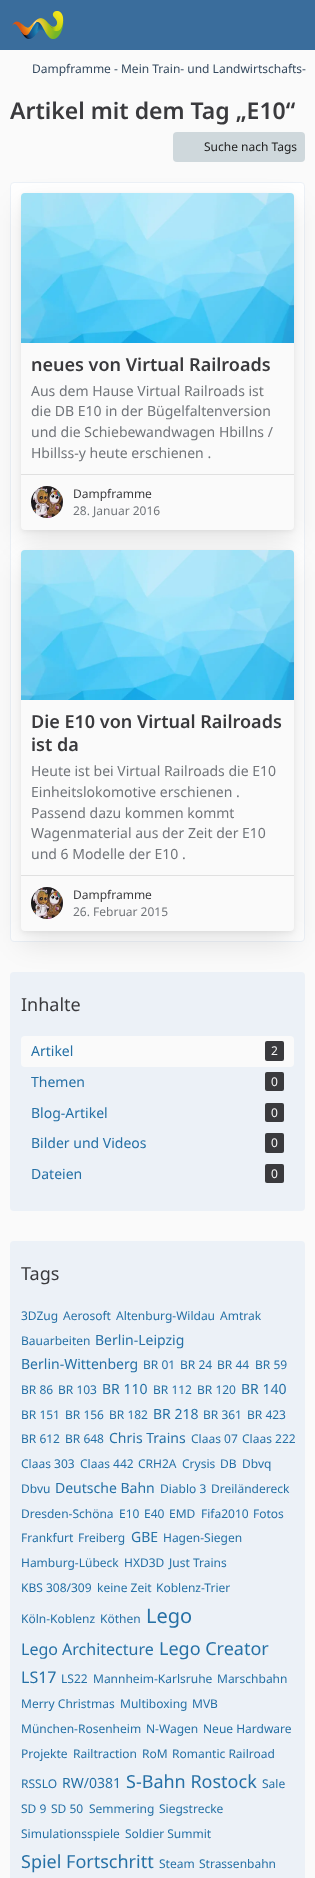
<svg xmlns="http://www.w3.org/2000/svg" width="315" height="1878">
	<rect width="100%" height="100%" fill="#FAFAFA" />
	<rect x="0" y="0" width="315" height="50" fill="#3A6D9C" />
	<image x="12" y="11" width="52" height="28" href="assets/img1.png" />
	<text x="32" y="73" font-family="Noto Sans" font-size="12" fill="#34495E">Dampframme - Mein Train- und Landwirtschafts-</text>
	<text x="10" y="119" font-family="Noto Sans" font-size="23" font-weight="600" fill="#3A3A3D">Artikel mit dem Tag „E10“</text>
	<rect x="173" y="132" width="132" height="30" rx="4" fill="#CFD8DC" />
	<text x="204" y="151" font-family="Noto Sans" font-size="12" fill="#212121">Suche nach Tags</text>
	<rect x="10.5" y="182.5" width="294" height="759" rx="3.5" fill="#FFFFFF" stroke="#ECF1F7" />
	<rect x="21" y="195" width="273" height="337" rx="4" fill="#000000" fill-opacity="0.05" filter="blur(2px)" />
	<rect x="21" y="205" width="273" height="337" rx="4" fill="#000000" fill-opacity="0.1" filter="blur(14px)" />
	<rect x="21" y="193" width="273" height="337" rx="4" fill="#FAFAFA" />
	<image x="21" y="193" width="273" height="150" href="assets/img2.png" />
	<text x="31" y="371" font-family="Noto Sans" font-size="18" font-weight="600" fill="#3A3A3D">neues von Virtual Railroads</text>
	<g font-family="Noto Sans" font-size="14" fill="#71757A">
		<text x="31" y="396">Aus dem Hause Virtual Railroads ist</text>
		<text x="31" y="416">die DB E10 in der Bügelfaltenversion</text>
		<text x="31" y="437">und die Schiebewandwagen Hbillns /</text>
		<text x="31" y="458">Hbillss-y heute erschienen .</text>
	</g>
	<rect x="21" y="474" width="273" height="1" fill="#E0E0E0" />
	<circle cx="47" cy="502" r="16" fill="#FFFFFF" />
	<image x="31" y="486" width="32" height="32" href="assets/img3.png" />
	<text x="73" y="498" font-family="Noto Sans" font-size="12" fill="#3A3A3D">Dampframme</text>
	<text x="73" y="515" font-family="Noto Sans" font-size="12" fill="#71757A">28. Januar 2016</text>
	<rect x="21" y="552" width="273" height="381" rx="4" fill="#000000" fill-opacity="0.05" filter="blur(2px)" />
	<rect x="10" y="972" width="295" height="239" rx="4" fill="#ECF1F7" />
	<rect x="21" y="562" width="273" height="381" rx="4" fill="#000000" fill-opacity="0.1" filter="blur(14px)" />
	<rect x="21" y="550" width="273" height="381" rx="4" fill="#FAFAFA" />
	<image x="21" y="550" width="273" height="150" href="assets/img4.png" />
	<g font-family="Noto Sans" font-size="18" font-weight="600" fill="#3A3A3D">
		<text x="31" y="728">Die E10 von Virtual Railroads</text>
		<text x="31" y="751">ist da</text>
	</g>
	<g font-family="Noto Sans" font-size="14" fill="#71757A">
		<text x="31" y="776">Heute ist bei Virtual Railroads die E10</text>
		<text x="31" y="797">Einheitslokomotive erschienen .</text>
		<text x="31" y="818">Passend dazu kommen kommt</text>
		<text x="31" y="838">Wagenmaterial aus der Zeit der E10</text>
		<text x="31" y="859">und 6 Modelle der E10 .</text>
	</g>
	<rect x="21" y="875" width="273" height="1" fill="#E0E0E0" />
	<circle cx="47" cy="903" r="16" fill="#FFFFFF" />
	<image x="31" y="887" width="32" height="32" href="assets/img5.png" />
	<text x="73" y="899" font-family="Noto Sans" font-size="12" fill="#3A3A3D">Dampframme</text>
	<text x="73" y="916" font-family="Noto Sans" font-size="12" fill="#71757A">26. Februar 2015</text>
	<text x="21" y="1011" font-family="Noto Sans" font-size="18" fill="#3A3A3D">Inhalte</text>
	<rect x="21" y="1036" width="273" height="31" rx="4" fill="#FAFAFA" />
	<text x="31" y="1056" font-family="Noto Sans" font-size="14" fill="#2671A6">Artikel</text>
	<rect x="265" y="1041" width="19" height="20" rx="2" fill="#3A3A3D" />
	<text x="271" y="1055" font-family="Noto Sans" font-size="12" fill="#FAFAFA">2</text>
	<text x="31" y="1087" font-family="Noto Sans" font-size="14" fill="#2671A6">Themen</text>
	<rect x="265" y="1072" width="19" height="19" rx="2" fill="#3A3A3D" />
	<text x="271" y="1086" font-family="Noto Sans" font-size="12" fill="#FAFAFA">0</text>
	<text x="31" y="1118" font-family="Noto Sans" font-size="14" fill="#2671A6">Blog-Artikel</text>
	<rect x="265" y="1103" width="19" height="19" rx="2" fill="#3A3A3D" />
	<text x="271" y="1117" font-family="Noto Sans" font-size="12" fill="#FAFAFA">0</text>
	<text x="31" y="1148" font-family="Noto Sans" font-size="14" fill="#2671A6">Bilder und Videos</text>
	<rect x="265" y="1133" width="19" height="20" rx="2" fill="#3A3A3D" />
	<text x="271" y="1147" font-family="Noto Sans" font-size="12" fill="#FAFAFA">0</text>
	<text x="31" y="1179" font-family="Noto Sans" font-size="14" fill="#2671A6">Dateien</text>
	<rect x="265" y="1164" width="19" height="19" rx="2" fill="#3A3A3D" />
	<text x="271" y="1178" font-family="Noto Sans" font-size="12" fill="#FAFAFA">0</text>
	<rect x="10" y="1241" width="295" height="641" rx="4" fill="#ECF1F7" />
	<text x="21" y="1280" font-family="Noto Sans" font-size="18" fill="#3A3A3D">Tags</text>
	<g font-family="Noto Sans" font-size="12" fill="#2671A6">
		<text x="21" y="1320">3DZug</text>
		<text x="63" y="1320">Aerosoft</text>
		<text x="116" y="1320">Altenburg-Wildau</text>
		<text x="220" y="1320">Amtrak</text>
		<text x="21" y="1345">Bauarbeiten</text>
	</g>
	<g font-family="Noto Sans" font-size="14" fill="#2671A6">
		<text x="95" y="1345">Berlin-Leipzig</text>
		<text x="21" y="1369">Berlin-Wittenberg</text>
	</g>
	<g font-family="Noto Sans" font-size="12" fill="#2671A6">
		<text x="143" y="1369">BR 01</text>
		<text x="180" y="1369">BR 24</text>
		<text x="217" y="1369">BR 44</text>
		<text x="255" y="1369">BR 59</text>
		<text x="21" y="1394">BR 86</text>
		<text x="58" y="1394">BR 103</text>
	</g>
	<text x="102" y="1394" font-family="Noto Sans" font-size="14" fill="#2671A6">BR 110</text>
	<g font-family="Noto Sans" font-size="12" fill="#2671A6">
		<text x="153" y="1394">BR 112</text>
		<text x="197" y="1394">BR 120</text>
	</g>
	<text x="241" y="1394" font-family="Noto Sans" font-size="14" fill="#2671A6">BR 140</text>
	<g font-family="Noto Sans" font-size="12" fill="#2671A6">
		<text x="21" y="1419">BR 151</text>
		<text x="65" y="1419">BR 156</text>
		<text x="109" y="1419">BR 182</text>
	</g>
	<text x="153" y="1419" font-family="Noto Sans" font-size="14" fill="#2671A6">BR 218</text>
	<g font-family="Noto Sans" font-size="12" fill="#2671A6">
		<text x="203" y="1419">BR 361</text>
		<text x="247" y="1419">BR 423</text>
		<text x="21" y="1443">BR 612</text>
		<text x="65" y="1443">BR 648</text>
	</g>
	<text x="109" y="1443" font-family="Noto Sans" font-size="14" fill="#2671A6">Chris Trains</text>
	<g font-family="Noto Sans" font-size="12" fill="#2671A6">
		<text x="191" y="1443">Claas 07</text>
		<text x="242" y="1443">Claas 222</text>
		<text x="21" y="1468">Claas 303</text>
		<text x="80" y="1468">Claas 442</text>
		<text x="138" y="1468">CRH2A</text>
		<text x="182" y="1468">Crysis</text>
		<text x="220" y="1468">DB</text>
		<text x="242" y="1468">Dbvq</text>
		<text x="21" y="1493">Dbvu</text>
	</g>
	<text x="55" y="1493" font-family="Noto Sans" font-size="14" fill="#2671A6">Deutsche Bahn</text>
	<g font-family="Noto Sans" font-size="12" fill="#2671A6">
		<text x="160" y="1493">Diablo 3</text>
		<text x="211" y="1493">Dreiländereck</text>
		<text x="21" y="1518">Dresden-Schöna</text>
		<text x="119" y="1518">E10</text>
		<text x="144" y="1518">E40</text>
		<text x="169" y="1518">EMD</text>
		<text x="201" y="1518">Fifa2010</text>
		<text x="253" y="1518">Fotos</text>
		<text x="21" y="1542">Frankfurt</text>
		<text x="78" y="1542">Freiberg</text>
	</g>
	<text x="131" y="1542" font-family="Noto Sans" font-size="14" fill="#2671A6">GBE</text>
	<g font-family="Noto Sans" font-size="12" fill="#2671A6">
		<text x="163" y="1542">Hagen-Siegen</text>
		<text x="21" y="1567">Hamburg-Lübeck</text>
		<text x="124" y="1567">HXD3D</text>
		<text x="169" y="1567">Just Trains</text>
		<text x="21" y="1592">KBS 308/309</text>
		<text x="97" y="1592">keine Zeit</text>
		<text x="156" y="1592">Koblenz-Trier</text>
		<text x="21" y="1623">Köln-Koblenz</text>
		<text x="100" y="1623">Köthen</text>
	</g>
	<text x="146" y="1623" font-family="Noto Sans" font-size="20" fill="#2671A6">Lego</text>
	<text x="21" y="1655" font-family="Noto Sans" font-size="16" fill="#2671A6">Lego Architecture</text>
	<text x="159" y="1655" font-family="Noto Sans" font-size="18" fill="#2671A6">Lego Creator</text>
	<text x="21" y="1683" font-family="Noto Sans" font-size="16" fill="#2671A6">LS17</text>
	<g font-family="Noto Sans" font-size="12" fill="#2671A6">
		<text x="61" y="1683">LS22</text>
		<text x="93" y="1683">Mannheim-Karlsruhe</text>
		<text x="217" y="1683">Marschbahn</text>
		<text x="21" y="1708">Merry Christmas</text>
		<text x="120" y="1708">Multiboxing</text>
		<text x="192" y="1708">MVB</text>
		<text x="21" y="1733">München-Rosenheim</text>
		<text x="146" y="1733">N-Wagen</text>
		<text x="203" y="1733">Neue Hardware</text>
		<text x="21" y="1758">Projekte</text>
		<text x="73" y="1758">Railtraction</text>
		<text x="142" y="1758">RoM</text>
		<text x="172" y="1758">Romantic Railroad</text>
		<text x="21" y="1788">RSSLO</text>
	</g>
	<text x="62" y="1788" font-family="Noto Sans" font-size="14" fill="#2671A6">RW/0381</text>
	<text x="126" y="1788" font-family="Noto Sans" font-size="18" fill="#2671A6">S-Bahn Rostock</text>
	<g font-family="Noto Sans" font-size="12" fill="#2671A6">
		<text x="262" y="1788">Sale</text>
		<text x="21" y="1813">SD 9</text>
		<text x="51" y="1813">SD 50</text>
		<text x="89" y="1813">Semmering</text>
		<text x="159" y="1813">Siegstrecke</text>
		<text x="21" y="1838">Simulationsspiele</text>
		<text x="125" y="1838">Soldier Summit</text>
	</g>
	<text x="21" y="1868" font-family="Noto Sans" font-size="18" fill="#2671A6">Spiel Fortschritt</text>
	<g font-family="Noto Sans" font-size="12" fill="#2671A6">
		<text x="159" y="1868">Steam</text>
		<text x="199" y="1868">Strassenbahn</text>
	</g>
</svg>
